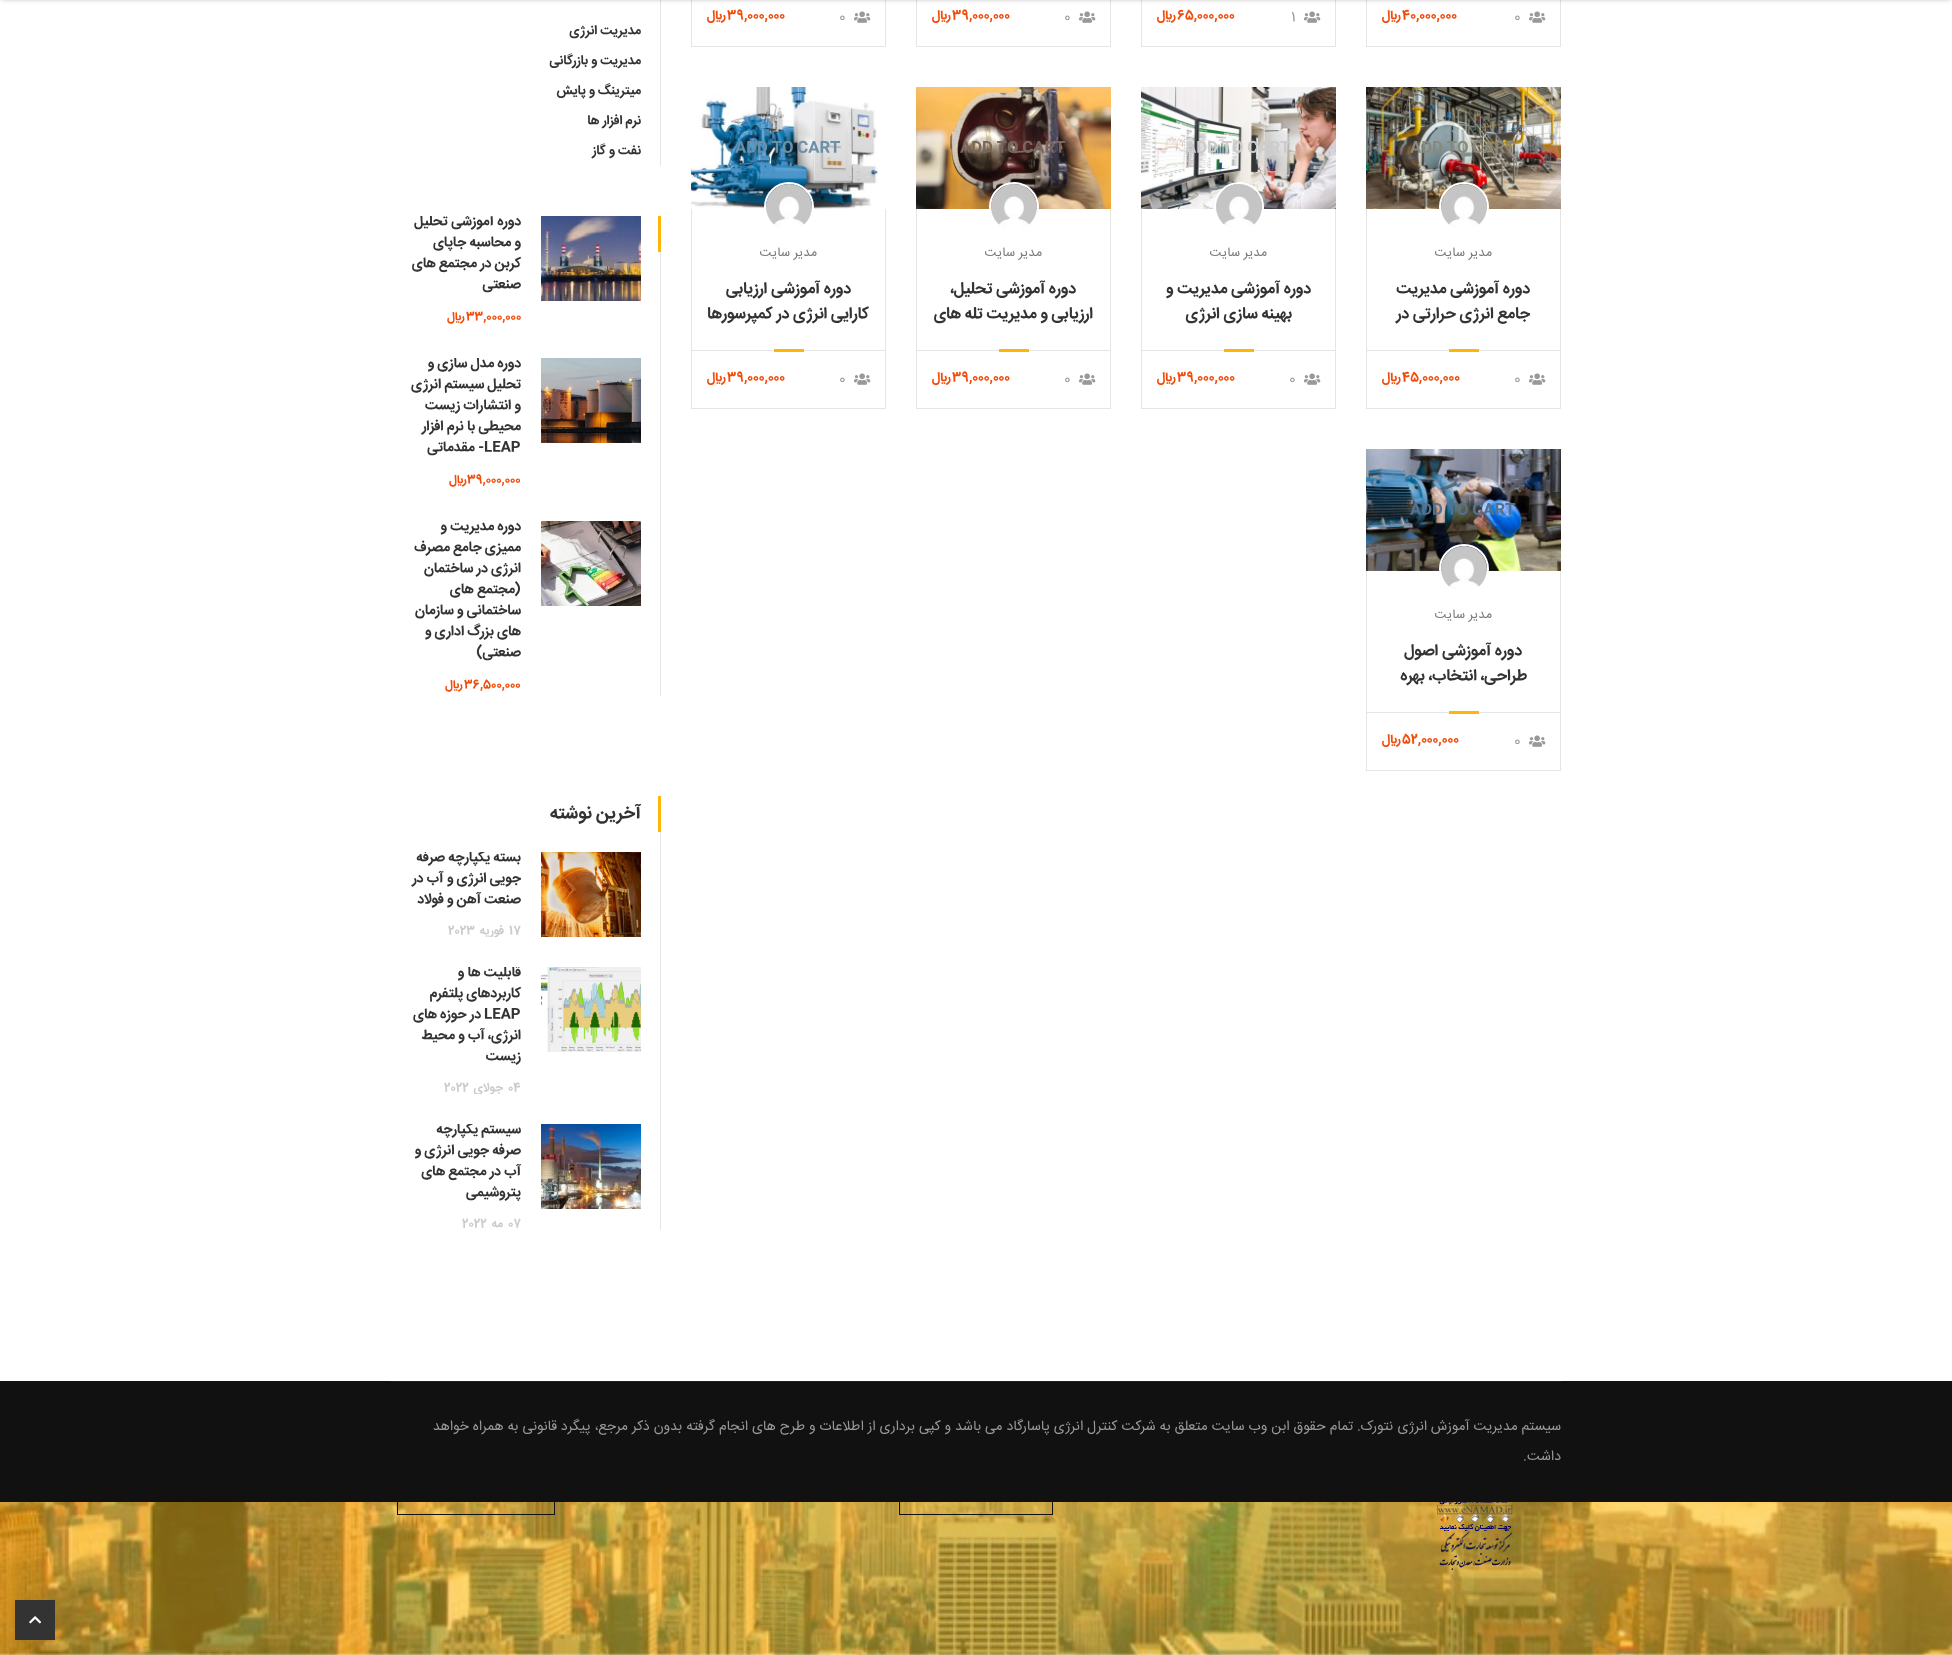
<svg xmlns="http://www.w3.org/2000/svg" width="1952" height="1655">
	<defs>
		<clipPath id="clip1"><rect x="411" y="216" width="230" height="112" /></clipPath>
		<clipPath id="clip2"><rect x="411" y="358" width="230" height="133" /></clipPath>
		<clipPath id="clip3"><rect x="411" y="852" width="230" height="85" /></clipPath>
		<clipPath id="clip4"><rect x="411" y="967" width="230" height="127" /></clipPath>
		<clipPath id="clip5"><rect x="411" y="1124" width="230" height="106" /></clipPath>
	</defs>
	<rect width="100%" height="100%" fill="#FFFFFF" />
	<rect x="1560" y="0" width="1" height="47" fill="#E5E5E5" />
	<rect x="1366" y="46" width="195" height="1" fill="#E5E5E5" />
	<rect x="1366" y="0" width="1" height="47" fill="#E5E5E5" />
	<rect x="1335" y="0" width="1" height="47" fill="#E5E5E5" />
	<rect x="1141" y="46" width="195" height="1" fill="#E5E5E5" />
	<rect x="1141" y="0" width="1" height="47" fill="#E5E5E5" />
	<rect x="1110" y="0" width="1" height="47" fill="#E5E5E5" />
	<rect x="916" y="46" width="195" height="1" fill="#E5E5E5" />
	<rect x="916" y="0" width="1" height="47" fill="#E5E5E5" />
	<rect x="885" y="0" width="1" height="47" fill="#E5E5E5" />
	<rect x="691" y="46" width="195" height="1" fill="#E5E5E5" />
	<rect x="691" y="0" width="1" height="47" fill="#E5E5E5" />
	<rect x="660" y="0" width="1" height="166" fill="#E5E5E5" />
	<rect x="2" y="-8" width="1948" height="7" fill="#2A2A2A" fill-opacity="0.4" filter="blur(2.5px)" />
	<image x="1529" y="11" width="17" height="12" href="assets/img1.png" />
	<text x="1514" y="21" font-family="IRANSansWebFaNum" font-size="14" fill="#999999">0</text>
	<text x="1402" y="19" font-family="IRANSansWebFaNum" font-size="13" font-weight="700" fill="#F24C0A">40,000,000</text>
	<text x="1399" y="19" font-family="IRANSansWebFaNum" font-size="13" font-weight="700" direction="rtl" fill="#F24C0A">﷼</text>
	<image x="1304" y="11" width="17" height="12" href="assets/img1.png" />
	<text x="1291" y="21" font-family="IRANSansWebFaNum" font-size="14" fill="#999999">1</text>
	<text x="1177" y="19" font-family="IRANSansWebFaNum" font-size="13" font-weight="700" fill="#F24C0A">65,000,000</text>
	<text x="1174" y="19" font-family="IRANSansWebFaNum" font-size="13" font-weight="700" direction="rtl" fill="#F24C0A">﷼</text>
	<image x="1079" y="11" width="17" height="12" href="assets/img1.png" />
	<text x="1064" y="21" font-family="IRANSansWebFaNum" font-size="14" fill="#999999">0</text>
	<text x="952" y="19" font-family="IRANSansWebFaNum" font-size="13" font-weight="700" fill="#F24C0A">39,000,000</text>
	<text x="949" y="19" font-family="IRANSansWebFaNum" font-size="13" font-weight="700" direction="rtl" fill="#F24C0A">﷼</text>
	<image x="854" y="11" width="17" height="12" href="assets/img1.png" />
	<text x="839" y="21" font-family="IRANSansWebFaNum" font-size="14" fill="#999999">0</text>
	<text x="727" y="19" font-family="IRANSansWebFaNum" font-size="13" font-weight="700" fill="#F24C0A">39,000,000</text>
	<text x="724" y="19" font-family="IRANSansWebFaNum" font-size="13" font-weight="700" direction="rtl" fill="#F24C0A">﷼</text>
	<image x="1366" y="87" width="195" height="122" href="assets/img2.png" />
	<text x="1410" y="152" font-family="IRANSansWebFaNum" font-size="15.5" font-weight="700" fill="#89897B">ADD TO CART</text>
	<rect x="1560" y="209" width="1" height="200" fill="#E5E5E5" />
	<rect x="1366" y="408" width="195" height="1" fill="#E5E5E5" />
	<rect x="1366" y="209" width="1" height="200" fill="#E5E5E5" />
	<circle cx="1464" cy="207" r="24" fill="none" stroke="#FFFFFF" stroke-width="2" />
	<image x="1441" y="184" width="46" height="44" href="assets/img3.png" />
	<text x="1492" y="256" font-family="IRANSansWebFaNum" font-size="13" direction="rtl" fill="#7A7A7A">مدیر سایت</text>
	<g font-family="IRANSansWebFaNum" font-size="16" font-weight="700" direction="rtl" fill="#333333">
		<text x="1530" y="293">دوره آموزشی مدیریت</text>
		<text x="1530" y="318">جامع انرژی حرارتی در</text>
	</g>
	<rect x="1367" y="350" width="193" height="1" fill="#E5E5E5" />
	<rect x="1449" y="349" width="30" height="3" fill="#FFB606" />
	<image x="1529" y="373" width="17" height="12" href="assets/img1.png" />
	<text x="1514" y="383" font-family="IRANSansWebFaNum" font-size="14" fill="#999999">0</text>
	<text x="1402" y="381" font-family="IRANSansWebFaNum" font-size="13" font-weight="700" fill="#F24C0A">45,000,000</text>
	<text x="1399" y="381" font-family="IRANSansWebFaNum" font-size="13" font-weight="700" direction="rtl" fill="#F24C0A">﷼</text>
	<image x="1141" y="87" width="195" height="122" href="assets/img4.png" />
	<text x="1185" y="152" font-family="IRANSansWebFaNum" font-size="15.5" font-weight="700" fill="#CCCCCC">ADD TO CART</text>
	<rect x="1335" y="209" width="1" height="200" fill="#E5E5E5" />
	<rect x="1141" y="408" width="195" height="1" fill="#E5E5E5" />
	<rect x="1141" y="209" width="1" height="200" fill="#E5E5E5" />
	<circle cx="1239" cy="207" r="24" fill="none" stroke="#FFFFFF" stroke-width="2" />
	<image x="1216" y="184" width="46" height="44" href="assets/img5.png" />
	<text x="1267" y="256" font-family="IRANSansWebFaNum" font-size="13" direction="rtl" fill="#7A7A7A">مدیر سایت</text>
	<g font-family="IRANSansWebFaNum" font-size="16" font-weight="700" direction="rtl" fill="#333333">
		<text x="1311" y="293">دوره آموزشی مدیریت و</text>
		<text x="1292" y="318">بهینه سازی انرژی</text>
	</g>
	<rect x="1142" y="350" width="193" height="1" fill="#E5E5E5" />
	<rect x="1224" y="349" width="30" height="3" fill="#FFB606" />
	<image x="1304" y="373" width="17" height="12" href="assets/img1.png" />
	<text x="1289" y="383" font-family="IRANSansWebFaNum" font-size="14" fill="#999999">0</text>
	<text x="1177" y="381" font-family="IRANSansWebFaNum" font-size="13" font-weight="700" fill="#F24C0A">39,000,000</text>
	<text x="1174" y="381" font-family="IRANSansWebFaNum" font-size="13" font-weight="700" direction="rtl" fill="#F24C0A">﷼</text>
	<image x="916" y="87" width="195" height="122" href="assets/img6.png" />
	<text x="960" y="152" font-family="IRANSansWebFaNum" font-size="15.5" font-weight="700" fill="#79665C">ADD TO CART</text>
	<rect x="1110" y="209" width="1" height="200" fill="#E5E5E5" />
	<rect x="916" y="408" width="195" height="1" fill="#E5E5E5" />
	<rect x="916" y="209" width="1" height="200" fill="#E5E5E5" />
	<circle cx="1014" cy="207" r="24" fill="none" stroke="#FFFFFF" stroke-width="2" />
	<image x="991" y="184" width="46" height="44" href="assets/img7.png" />
	<text x="1042" y="256" font-family="IRANSansWebFaNum" font-size="13" direction="rtl" fill="#7A7A7A">مدیر سایت</text>
	<g font-family="IRANSansWebFaNum" font-size="16" font-weight="700" direction="rtl" fill="#333333">
		<text x="1076" y="293">دوره آموزشی تحلیل،</text>
		<text x="1093" y="318">ارزیابی و مدیریت تله های</text>
	</g>
	<rect x="917" y="350" width="193" height="1" fill="#E5E5E5" />
	<rect x="999" y="349" width="30" height="3" fill="#FFB606" />
	<image x="1079" y="373" width="17" height="12" href="assets/img1.png" />
	<text x="1064" y="383" font-family="IRANSansWebFaNum" font-size="14" fill="#999999">0</text>
	<text x="952" y="381" font-family="IRANSansWebFaNum" font-size="13" font-weight="700" fill="#F24C0A">39,000,000</text>
	<text x="949" y="381" font-family="IRANSansWebFaNum" font-size="13" font-weight="700" direction="rtl" fill="#F24C0A">﷼</text>
	<image x="691" y="87" width="188" height="122" href="assets/img8.png" />
	<text x="735" y="152" font-family="IRANSansWebFaNum" font-size="15.5" font-weight="700" fill="#6C91A7">ADD TO CART</text>
	<rect x="885" y="209" width="1" height="200" fill="#E5E5E5" />
	<rect x="691" y="408" width="195" height="1" fill="#E5E5E5" />
	<rect x="691" y="209" width="1" height="200" fill="#E5E5E5" />
	<circle cx="789" cy="207" r="24" fill="none" stroke="#FFFFFF" stroke-width="2" />
	<image x="766" y="184" width="46" height="44" href="assets/img9.png" />
	<text x="817" y="256" font-family="IRANSansWebFaNum" font-size="13" direction="rtl" fill="#7A7A7A">مدیر سایت</text>
	<g font-family="IRANSansWebFaNum" font-size="16" font-weight="700" direction="rtl" fill="#333333">
		<text x="851" y="293">دوره آموزشی ارزیابی</text>
		<text x="869" y="318">کارایی انرژی در کمپرسورها</text>
	</g>
	<rect x="692" y="350" width="193" height="1" fill="#E5E5E5" />
	<rect x="774" y="349" width="30" height="3" fill="#FFB606" />
	<image x="854" y="373" width="17" height="12" href="assets/img1.png" />
	<text x="839" y="383" font-family="IRANSansWebFaNum" font-size="14" fill="#999999">0</text>
	<text x="727" y="381" font-family="IRANSansWebFaNum" font-size="13" font-weight="700" fill="#F24C0A">39,000,000</text>
	<text x="724" y="381" font-family="IRANSansWebFaNum" font-size="13" font-weight="700" direction="rtl" fill="#F24C0A">﷼</text>
	<image x="1366" y="449" width="195" height="122" href="assets/img10.png" />
	<text x="1410" y="514" font-family="IRANSansWebFaNum" font-size="15.5" font-weight="700" fill="#54718E">ADD TO CART</text>
	<rect x="1560" y="571" width="1" height="200" fill="#E5E5E5" />
	<rect x="1366" y="770" width="195" height="1" fill="#E5E5E5" />
	<rect x="1366" y="571" width="1" height="200" fill="#E5E5E5" />
	<circle cx="1464" cy="569" r="24" fill="none" stroke="#FFFFFF" stroke-width="2" />
	<image x="1441" y="546" width="46" height="44" href="assets/img11.png" />
	<text x="1492" y="618" font-family="IRANSansWebFaNum" font-size="13" direction="rtl" fill="#7A7A7A">مدیر سایت</text>
	<g font-family="IRANSansWebFaNum" font-size="16" font-weight="700" direction="rtl" fill="#333333">
		<text x="1522" y="655">دوره آموزشی اصول</text>
		<text x="1527" y="680">طراحی، انتخاب، بهره</text>
	</g>
	<rect x="1367" y="712" width="193" height="1" fill="#E5E5E5" />
	<rect x="1449" y="711" width="30" height="3" fill="#FFB606" />
	<image x="1529" y="735" width="17" height="12" href="assets/img1.png" />
	<text x="1514" y="745" font-family="IRANSansWebFaNum" font-size="14" fill="#999999">0</text>
	<text x="1402" y="743" font-family="IRANSansWebFaNum" font-size="13" font-weight="700" fill="#F24C0A">52,000,000</text>
	<text x="1399" y="743" font-family="IRANSansWebFaNum" font-size="13" font-weight="700" direction="rtl" fill="#F24C0A">﷼</text>
	<g font-family="IRANSansWebFaNum" font-size="13" font-weight="700" direction="rtl" fill="#333333">
		<text x="641" y="34">مدیریت انرژی</text>
		<text x="641" y="64">مدیریت و بازرگانی</text>
		<text x="641" y="94">میترینگ و پایش</text>
		<text x="641" y="124">نرم افزار ها</text>
		<text x="641" y="154">نفت و گاز</text>
	</g>
	<rect x="658" y="216" width="3" height="36" fill="#FFB606" />
	<image x="541" y="216" width="100" height="85" href="assets/img12.png" />
	<g clip-path="url(#clip1)">
		<text x="521" y="225" font-family="IRANSansWebFaNum" font-size="14" font-weight="700" direction="rtl" fill="#333333">دوره آموزشی تحلیل</text>
	</g>
	<g font-family="IRANSansWebFaNum" font-size="14" font-weight="700" direction="rtl" fill="#333333">
		<text x="521" y="246">و محاسبه جاپای</text>
		<text x="521" y="267">کربن در مجتمع های</text>
		<text x="521" y="288">صنعتی</text>
	</g>
	<text x="466" y="320" font-family="IRANSansWebFaNum" font-size="12" font-weight="700" fill="#F24C0A">33,000,000</text>
	<text x="463" y="320" font-family="IRANSansWebFaNum" font-size="12" font-weight="700" direction="rtl" fill="#F24C0A">﷼</text>
	<image x="541" y="358" width="100" height="85" href="assets/img13.png" />
	<g clip-path="url(#clip2)">
		<text x="521" y="367" font-family="IRANSansWebFaNum" font-size="14" font-weight="700" direction="rtl" fill="#333333">دوره مدل سازی و</text>
	</g>
	<g font-family="IRANSansWebFaNum" font-size="14" font-weight="700" direction="rtl" fill="#333333">
		<text x="521" y="388">تحلیل سیستم انرژی</text>
		<text x="521" y="409">و انتشارات زیست</text>
		<text x="521" y="430">محیطی با نرم افزار</text>
	</g>
	<text x="484" y="451" font-family="IRANSansWebFaNum" font-size="14" font-weight="700" fill="#333333">LEAP</text>
	<text x="484" y="451" font-family="IRANSansWebFaNum" font-size="14" font-weight="700" direction="rtl" fill="#333333">- مقدماتی</text>
	<text x="467" y="483" font-family="IRANSansWebFaNum" font-size="12" font-weight="700" fill="#F24C0A">39,000,000</text>
	<text x="465" y="483" font-family="IRANSansWebFaNum" font-size="12" font-weight="700" direction="rtl" fill="#F24C0A">﷼</text>
	<image x="541" y="521" width="100" height="85" href="assets/img14.png" />
	<g font-family="IRANSansWebFaNum" font-size="14" font-weight="700" direction="rtl" fill="#333333">
		<text x="521" y="530">دوره مدیریت و</text>
		<text x="521" y="551">ممیزی جامع مصرف</text>
		<text x="521" y="572">انرژی در ساختمان</text>
		<text x="521" y="593">(مجتمع های</text>
		<text x="521" y="614">ساختمانی و سازمان</text>
		<text x="521" y="635">های بزرگ اداری و</text>
		<text x="521" y="656">صنعتی)</text>
	</g>
	<text x="464" y="688" font-family="IRANSansWebFaNum" font-size="12" font-weight="700" fill="#F24C0A">36,500,000</text>
	<text x="461" y="688" font-family="IRANSansWebFaNum" font-size="12" font-weight="700" direction="rtl" fill="#F24C0A">﷼</text>
	<rect x="660" y="252" width="1" height="444" fill="#E5E5E5" />
	<rect x="658" y="796" width="3" height="36" fill="#FFB606" />
	<text x="641" y="818" font-family="IRANSansWebFaNum" font-size="18" font-weight="700" direction="rtl" fill="#333333">آخرین نوشته</text>
	<image x="541" y="852" width="100" height="85" href="assets/img15.png" />
	<g clip-path="url(#clip3)">
		<text x="521" y="861" font-family="IRANSansWebFaNum" font-size="14" font-weight="700" direction="rtl" fill="#333333">بسته یکپارچه صرفه</text>
	</g>
	<g font-family="IRANSansWebFaNum" font-size="14" font-weight="700" direction="rtl" fill="#333333">
		<text x="521" y="882">جویی انرژی و آب در</text>
		<text x="521" y="903">صنعت آهن و فولاد</text>
	</g>
	<text x="509" y="934" font-family="IRANSansWebFaNum" font-size="12" font-weight="700" fill="#CCCCCC">17</text>
	<g clip-path="url(#clip3)">
		<text x="504" y="934" font-family="IRANSansWebFaNum" font-size="12" font-weight="700" direction="rtl" fill="#CCCCCC">فوریه</text>
	</g>
	<text x="448" y="934" font-family="IRANSansWebFaNum" font-size="12" font-weight="700" fill="#CCCCCC">2023</text>
	<image x="541" y="967" width="100" height="85" href="assets/img16.png" />
	<g clip-path="url(#clip4)">
		<text x="521" y="976" font-family="IRANSansWebFaNum" font-size="14" font-weight="700" direction="rtl" fill="#333333">قابلیت ها و</text>
	</g>
	<text x="521" y="997" font-family="IRANSansWebFaNum" font-size="14" font-weight="700" direction="rtl" fill="#333333">کاربردهای پلتفرم</text>
	<text x="484" y="1018" font-family="IRANSansWebFaNum" font-size="14" font-weight="700" fill="#333333">LEAP</text>
	<g font-family="IRANSansWebFaNum" font-size="14" font-weight="700" direction="rtl" fill="#333333">
		<text x="481" y="1018">در حوزه های</text>
		<text x="521" y="1039">انرژی، آب و محیط</text>
		<text x="521" y="1060">زیست</text>
	</g>
	<text x="508" y="1091" font-family="IRANSansWebFaNum" font-size="12" font-weight="700" fill="#CCCCCC">04</text>
	<g clip-path="url(#clip4)">
		<text x="503" y="1091" font-family="IRANSansWebFaNum" font-size="12" font-weight="700" direction="rtl" fill="#CCCCCC">جولای</text>
	</g>
	<text x="444" y="1091" font-family="IRANSansWebFaNum" font-size="12" font-weight="700" fill="#CCCCCC">2022</text>
	<image x="541" y="1124" width="100" height="85" href="assets/img17.png" />
	<g clip-path="url(#clip5)">
		<text x="521" y="1133" font-family="IRANSansWebFaNum" font-size="14" font-weight="700" direction="rtl" fill="#333333">سیستم یکپارچه</text>
	</g>
	<g font-family="IRANSansWebFaNum" font-size="14" font-weight="700" direction="rtl" fill="#333333">
		<text x="521" y="1154">صرفه جویی انرژی و</text>
		<text x="521" y="1175">آب در مجتمع های</text>
		<text x="521" y="1196">پتروشیمی</text>
	</g>
	<text x="508" y="1227" font-family="IRANSansWebFaNum" font-size="12" font-weight="700" fill="#CCCCCC">07</text>
	<text x="503" y="1227" font-family="IRANSansWebFaNum" font-size="12" font-weight="700" direction="rtl" fill="#CCCCCC">مه</text>
	<text x="462" y="1227" font-family="IRANSansWebFaNum" font-size="12" font-weight="700" fill="#CCCCCC">2022</text>
	<rect x="660" y="832" width="1" height="398" fill="#E5E5E5" />
	<image x="0" y="1502" width="1952" height="153" href="assets/img18.png" />
	<rect x="899.5" y="1465.5" width="153" height="49" fill="none" stroke="#111111" />
	<rect x="397.5" y="1465.5" width="157" height="49" fill="none" stroke="#111111" />
	<rect x="0" y="1381" width="1952" height="121" fill="#111111" />
	<rect x="391" y="1381" width="1170" height="1" fill="#222222" />
	<g font-family="IRANSansWebFaNum" font-size="14" direction="rtl" fill="#999999">
		<text x="1561" y="1430">سیستم مدیریت آموزش</text>
		<text x="1427" y="1430">انرژی</text>
		<text x="1393" y="1430">نتورک</text>
		<text x="1361" y="1430">. تمام حقوق ابن وب سایت متعلق به شرکت کنترل انرژی پاسارگاد می باشد و کپی برداری از اطلاعات و طرح های انجام گرفته بدون ذکر مرجع، پیگرد قانونی به همراه خواهد</text>
		<text x="1561" y="1460">داشت.</text>
	</g>
	<image x="1437" y="1502" width="76" height="68" href="assets/img19.png" />
	<rect x="15" y="1600" width="40" height="40" fill="#333333" />
	<image x="29" y="1616" width="12" height="8" href="assets/img20.png" />
</svg>
